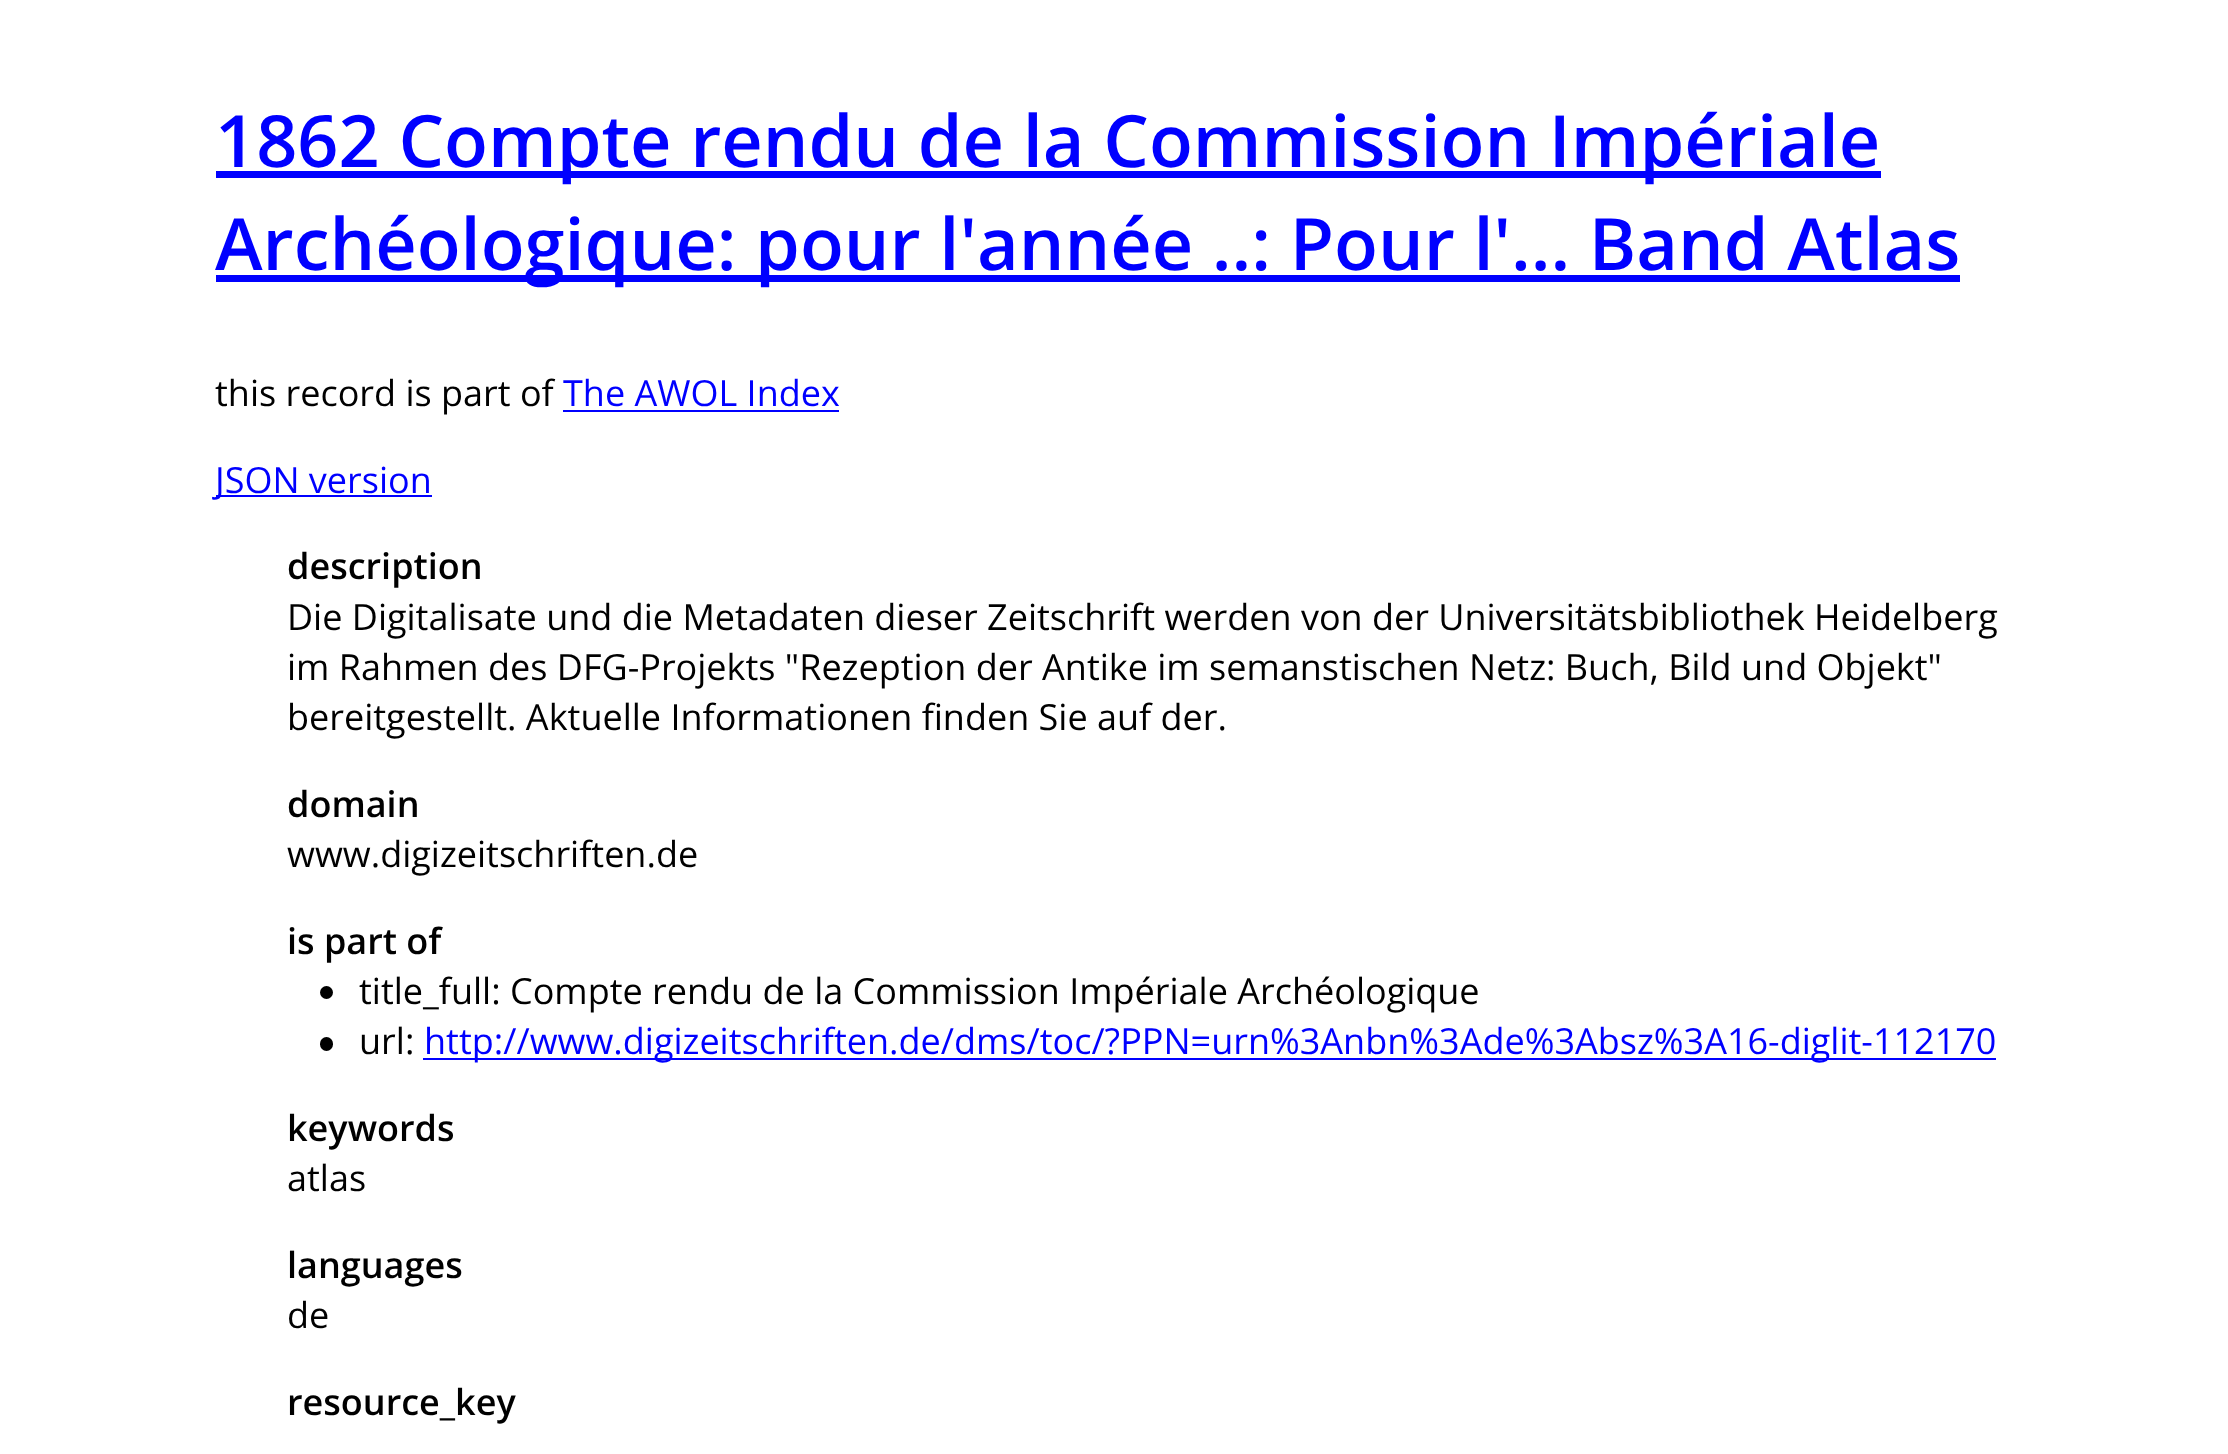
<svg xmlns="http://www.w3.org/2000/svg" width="2228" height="1454">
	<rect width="100%" height="100%" fill="#FFFFFF" />
	<rect x="216" y="171" width="1665" height="7" fill="#0000FF" />
	<text x="215" y="167" font-family="Open Sans" font-size="72" font-weight="600" fill="#0000FF">1862 Compte rendu de la Commission Impériale</text>
	<rect x="216" y="275" width="1744" height="7" fill="#0000FF" />
	<text x="215" y="270" font-family="Open Sans" font-size="72" font-weight="600" fill="#0000FF">Archéologique: pour l'année ..: Pour l'... Band Atlas</text>
	<text x="215" y="406" font-family="Open Sans" font-size="36" fill="#000000">this record is part of</text>
	<text x="563" y="406" font-family="Open Sans" font-size="36" fill="#0000FF">The AWOL Index</text>
	<rect x="563" y="410" width="276" height="2" fill="#0000FF" />
	<rect x="216" y="495" width="216" height="2" fill="#0000FF" />
	<text x="215" y="493" font-family="Open Sans" font-size="36" fill="#0000FF">JSON version</text>
	<text x="287" y="579" font-family="Open Sans" font-size="36" font-weight="600" fill="#000000">description</text>
	<g font-family="Open Sans" font-size="36" fill="#000000">
		<text x="287" y="630">Die Digitalisate und die Metadaten dieser Zeitschrift werden von der Universitätsbibliothek Heidelberg</text>
		<text x="287" y="680">im Rahmen des DFG-Projekts "Rezeption der Antike im semanstischen Netz: Buch, Bild und Objekt"</text>
		<text x="287" y="730">bereitgestellt. Aktuelle Informationen finden Sie auf der.</text>
	</g>
	<text x="287" y="817" font-family="Open Sans" font-size="36" font-weight="600" fill="#000000">domain</text>
	<text x="287" y="867" font-family="Open Sans" font-size="36" fill="#000000">www.digizeitschriften.de</text>
	<text x="287" y="954" font-family="Open Sans" font-size="36" font-weight="600" fill="#000000">is part of</text>
	<circle cx="326.5" cy="992.5" r="6.5" fill="#000000" />
	<text x="359" y="1004" font-family="Open Sans" font-size="36" fill="#000000">title_full: Compte rendu de la Commission Impériale Archéologique</text>
	<rect x="320" y="1037" width="13" height="14" rx="6.5" fill="#000000" />
	<text x="359" y="1054" font-family="Open Sans" font-size="36" fill="#000000">url:</text>
	<rect x="423" y="1058" width="1573" height="2" fill="#0000FF" />
	<text x="424" y="1054" font-family="Open Sans" font-size="36" fill="#0000FF">http://www.digizeitschriften.de/dms/toc/?PPN=urn%3Anbn%3Ade%3Absz%3A16-diglit-112170</text>
	<text x="287" y="1141" font-family="Open Sans" font-size="36" font-weight="600" fill="#000000">keywords</text>
	<text x="287" y="1191" font-family="Open Sans" font-size="36" fill="#000000">atlas</text>
	<text x="287" y="1278" font-family="Open Sans" font-size="36" font-weight="600" fill="#000000">languages</text>
	<text x="287" y="1328" font-family="Open Sans" font-size="36" fill="#000000">de</text>
	<text x="287" y="1415" font-family="Open Sans" font-size="36" font-weight="600" fill="#000000">resource_key</text>
</svg>
